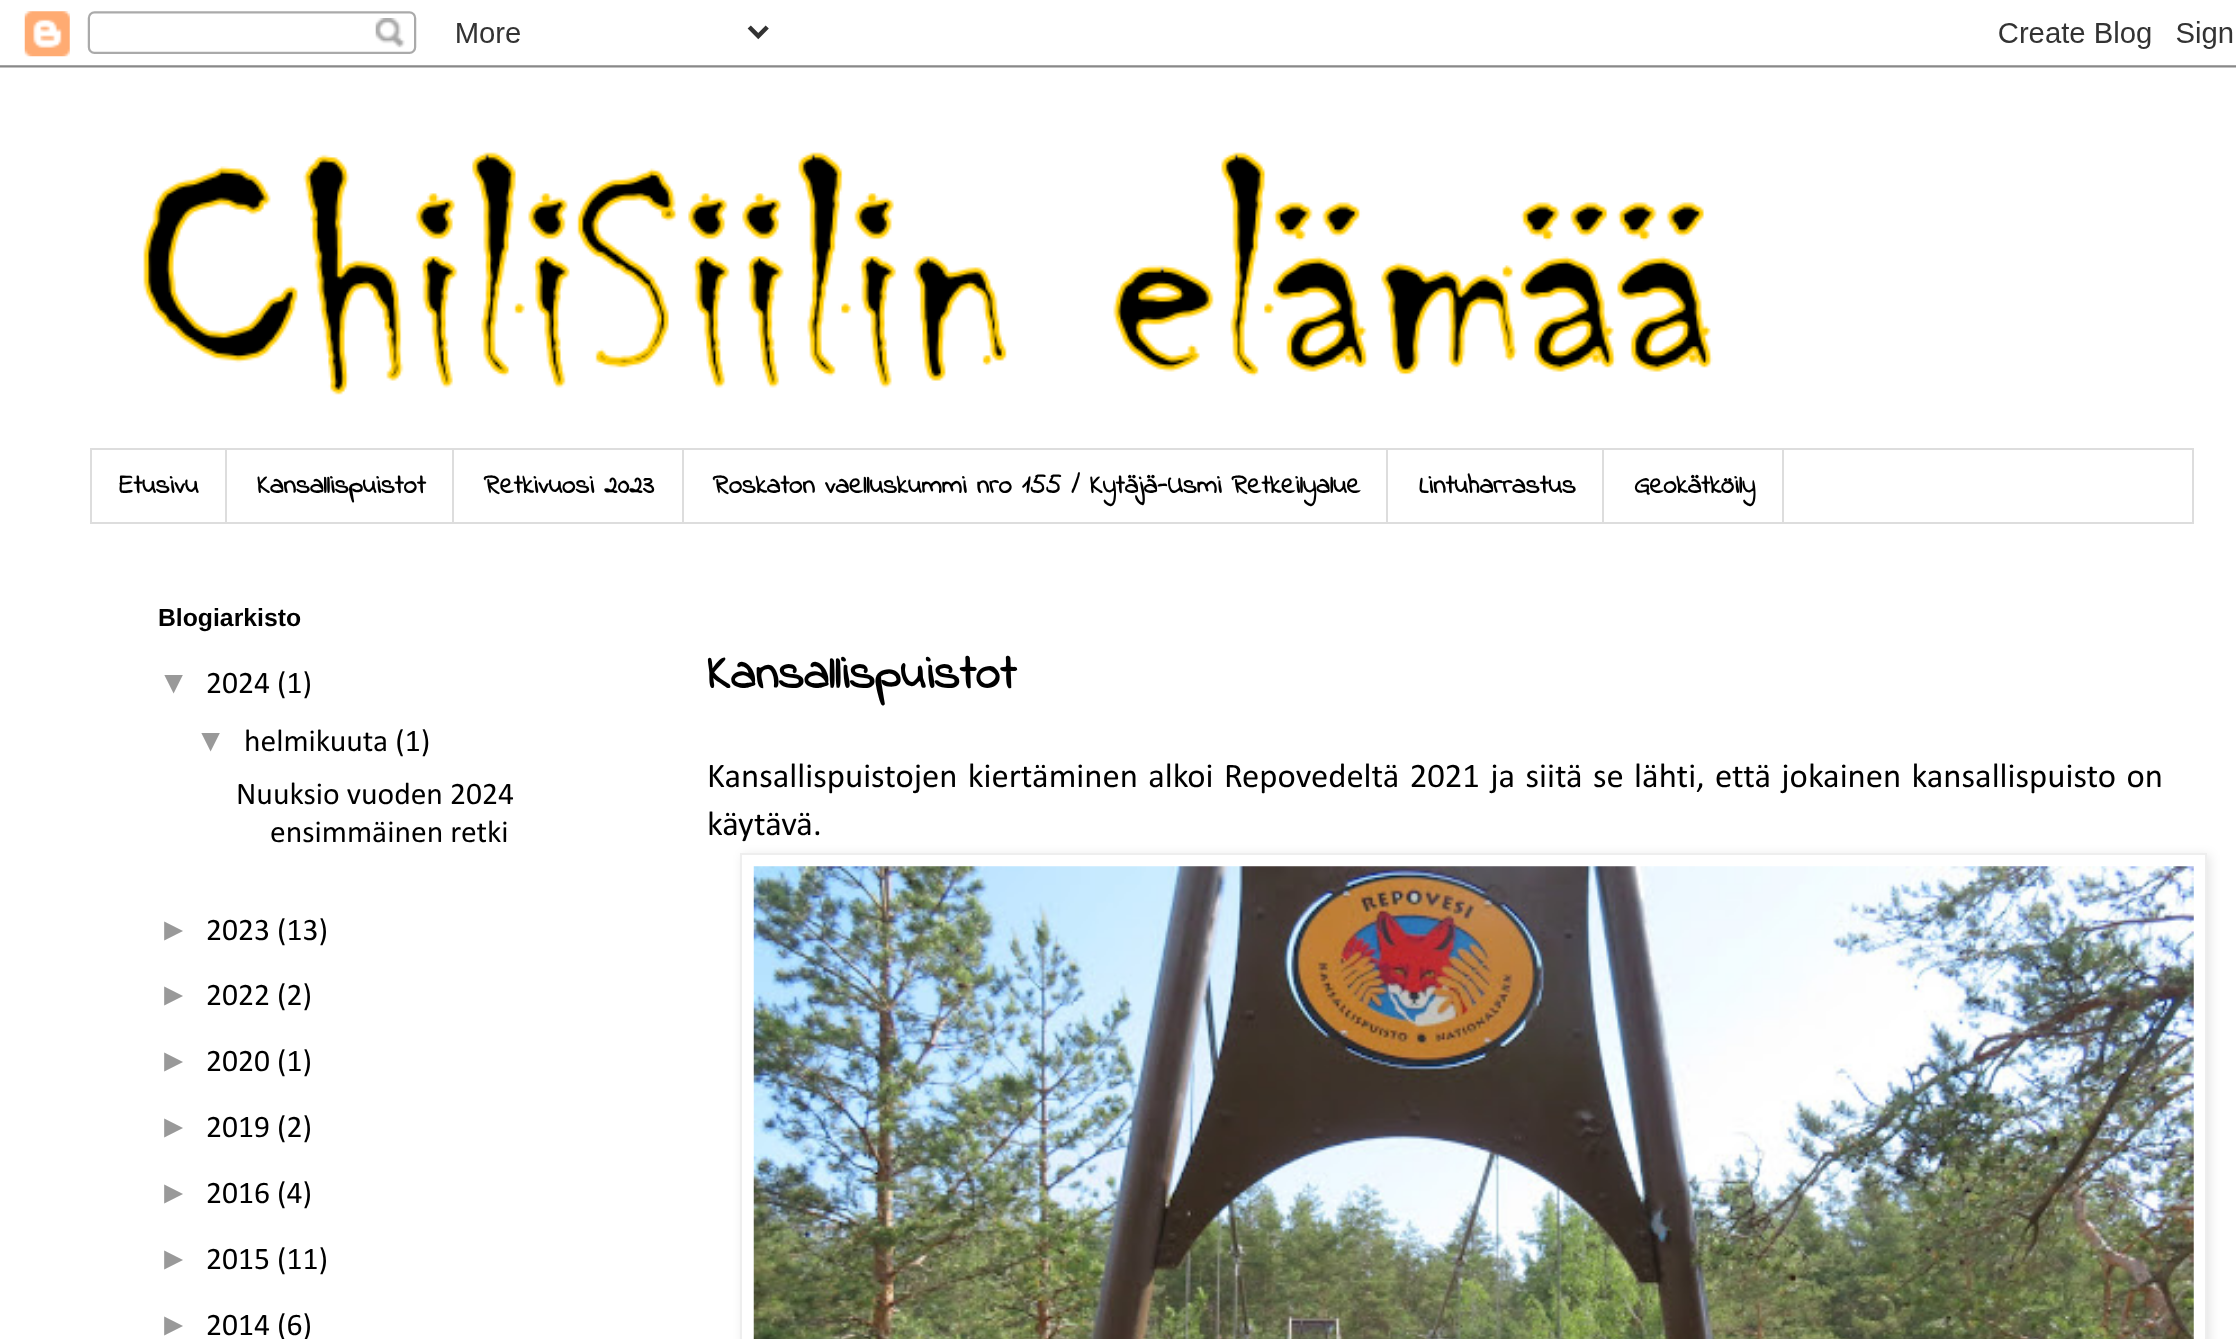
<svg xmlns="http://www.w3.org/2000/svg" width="2236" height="1339">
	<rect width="100%" height="100%" fill="#FFFFFF" />
	<image x="0" y="11" width="2236" height="57" href="assets/img1.png" />
	<image x="143" y="152" width="1570" height="243" href="assets/img2.png" />
	<rect x="91" y="449" width="2102" height="74" fill="none" stroke="#DDDDDD" stroke-width="2" />
	<rect x="225" y="450" width="2" height="72" fill="#DDDDDD" />
	<text x="119" y="493" font-family="Indie Flower" font-size="27" font-weight="700" fill="#000000">Etusivu</text>
	<rect x="452" y="450" width="2" height="72" fill="#DDDDDD" />
	<text x="257" y="493" font-family="Indie Flower" font-size="27" font-weight="700" fill="#000000">Kansallispuistot</text>
	<rect x="682" y="450" width="2" height="72" fill="#DDDDDD" />
	<text x="484" y="493" font-family="Indie Flower" font-size="27" font-weight="700" fill="#000000">Retkivuosi 2023</text>
	<rect x="1386" y="450" width="2" height="72" fill="#DDDDDD" />
	<text x="713" y="493" font-family="Indie Flower" font-size="27" font-weight="700" fill="#000000">Roskaton vaelluskummi nro 155 / Kytäjä-Usmi Retkeilyalue</text>
	<rect x="1602" y="450" width="2" height="72" fill="#DDDDDD" />
	<text x="1419" y="493" font-family="Indie Flower" font-size="27" font-weight="700" fill="#000000">Lintuharrastus</text>
	<rect x="1782" y="450" width="2" height="72" fill="#DDDDDD" />
	<text x="1634" y="493" font-family="Indie Flower" font-size="27" font-weight="700" fill="#000000">Geokätköily</text>
	<text x="158" y="626" font-family="Liberation Sans" font-size="24.75" font-weight="700" fill="#000000">Blogiarkisto</text>
	<text x="158" y="693" font-family="Liberation Sans" font-size="31.5" fill="#999999">▼</text>
	<text x="206" y="693" font-family="Calibri" font-size="31.5" fill="#000000">2024 (1)</text>
	<text x="195" y="751" font-family="Liberation Sans" font-size="31.5" fill="#999999">▼</text>
	<g font-family="Calibri" font-size="31.5" fill="#000000">
		<text x="244" y="751">helmikuuta (1)</text>
		<text x="236" y="804">Nuuksio vuoden 2024</text>
		<text x="270" y="842">ensimmäinen retki</text>
	</g>
	<text x="158" y="940" font-family="Liberation Sans" font-size="31.5" fill="#999999">►</text>
	<text x="206" y="940" font-family="Calibri" font-size="31.5" fill="#000000">2023 (13)</text>
	<text x="158" y="1005" font-family="Liberation Sans" font-size="31.5" fill="#999999">►</text>
	<text x="206" y="1005" font-family="Calibri" font-size="31.5" fill="#000000">2022 (2)</text>
	<text x="158" y="1071" font-family="Liberation Sans" font-size="31.5" fill="#999999">►</text>
	<text x="206" y="1071" font-family="Calibri" font-size="31.5" fill="#000000">2020 (1)</text>
	<text x="158" y="1137" font-family="Liberation Sans" font-size="31.5" fill="#999999">►</text>
	<text x="206" y="1137" font-family="Calibri" font-size="31.5" fill="#000000">2019 (2)</text>
	<text x="158" y="1203" font-family="Liberation Sans" font-size="31.5" fill="#999999">►</text>
	<text x="206" y="1203" font-family="Calibri" font-size="31.5" fill="#000000">2016 (4)</text>
	<text x="158" y="1269" font-family="Liberation Sans" font-size="31.5" fill="#999999">►</text>
	<text x="206" y="1269" font-family="Calibri" font-size="31.5" fill="#000000">2015 (11)</text>
	<text x="158" y="1335" font-family="Liberation Sans" font-size="31.5" fill="#999999">►</text>
	<text x="206" y="1335" font-family="Calibri" font-size="31.5" fill="#000000">2014 (6)</text>
	<text x="707" y="688" font-family="Indie Flower" font-size="49.5" font-weight="700" fill="#000000">Kansallispuistot</text>
	<g font-family="Calibri" font-size="34.65" fill="#000000">
		<text x="707" y="787" word-spacing="2.5">Kansallispuistojen kiertäminen alkoi Repovedeltä 2021 ja siitä se lähti, että jokainen kansallispuisto on</text>
		<text x="707" y="835">käytävä.</text>
	</g>
	<rect x="743" y="855" width="1467" height="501" fill="#000000" fill-opacity="0.1" filter="blur(5.5px)" />
	<rect x="741" y="854" width="1465" height="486" fill="#FFFFFF" stroke="#EEEEEE" stroke-width="2" />
	<image x="753" y="866" width="1441" height="473" href="assets/img3.png" />
</svg>
